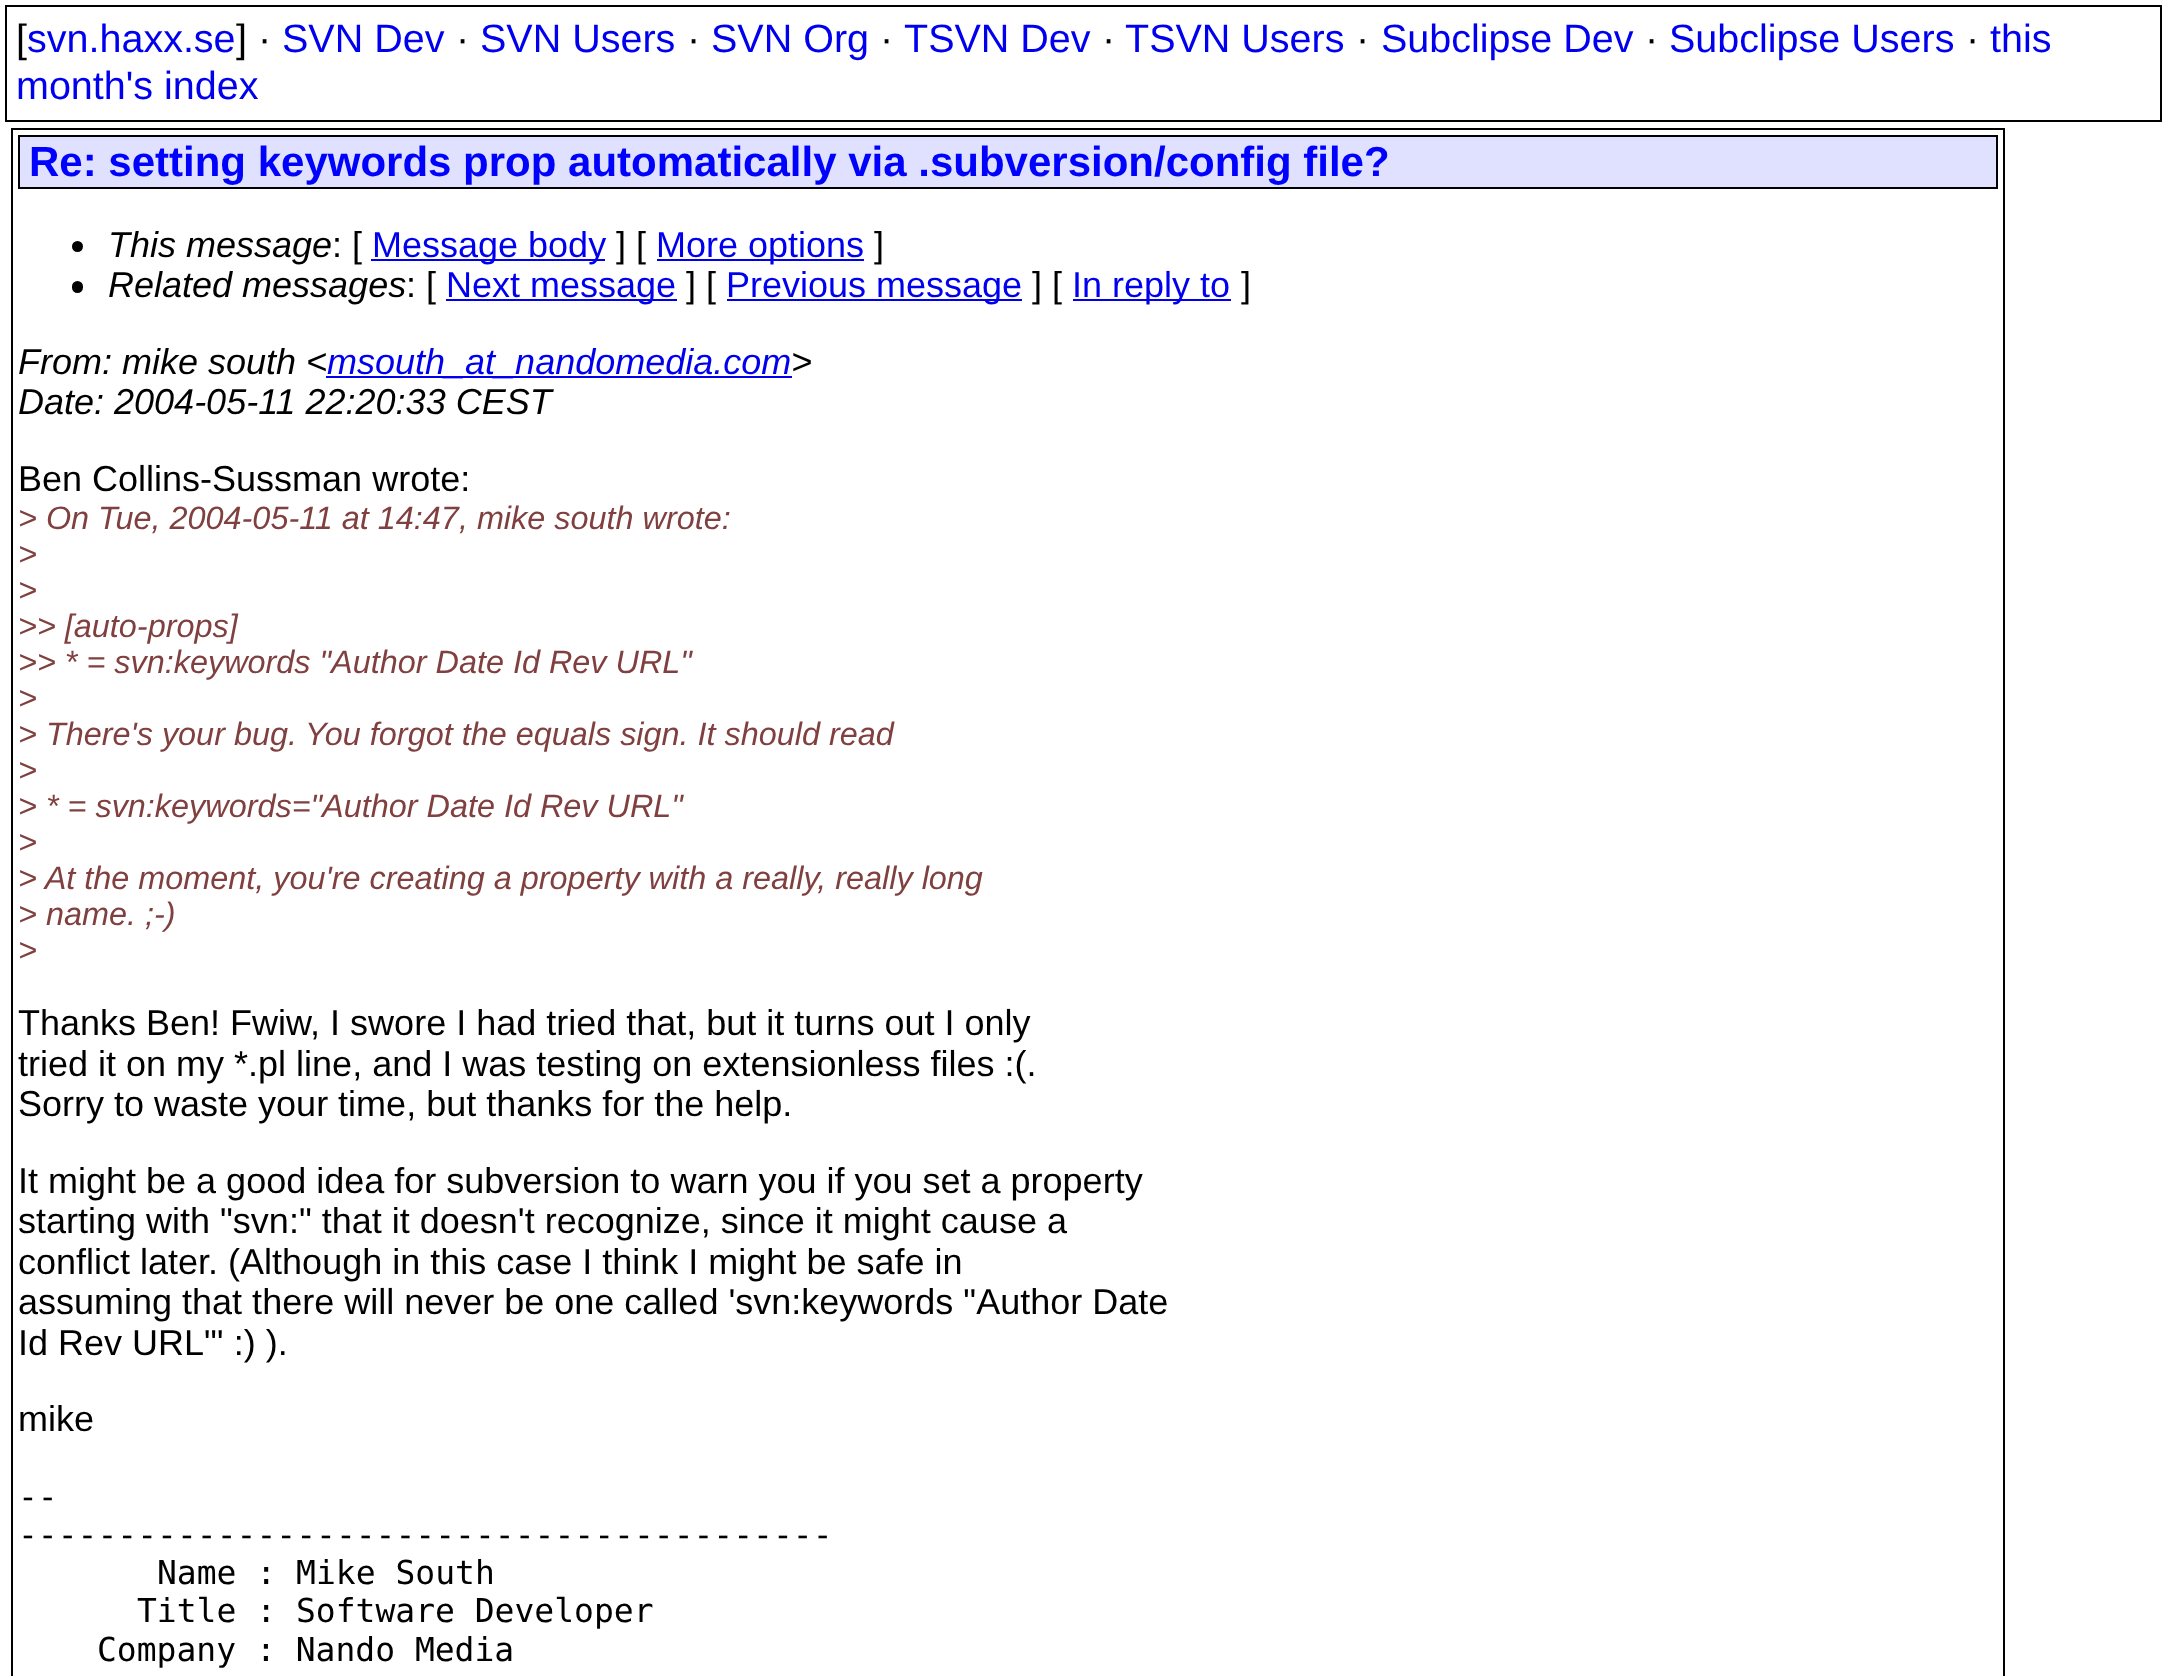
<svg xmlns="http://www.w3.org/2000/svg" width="2166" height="1676">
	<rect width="100%" height="100%" fill="#FFFFFF" />
	<rect x="6" y="6" width="2155" height="115" fill="none" stroke="#000000" stroke-width="2" />
	<text x="16" y="52" font-family="Liberation Sans" font-size="39.5" fill="#000000">[</text>
	<text x="27" y="52" font-family="Liberation Sans" font-size="39.5" fill="#0000EE">svn.haxx.se</text>
	<text x="236" y="52" font-family="Liberation Sans" font-size="39.5" fill="#000000">] ·</text>
	<text x="282" y="52" font-family="Liberation Sans" font-size="39.5" fill="#0000EE">SVN Dev</text>
	<text x="456" y="52" font-family="Liberation Sans" font-size="39.5" fill="#000000">·</text>
	<text x="480" y="52" font-family="Liberation Sans" font-size="39.5" fill="#0000EE">SVN Users</text>
	<text x="687" y="52" font-family="Liberation Sans" font-size="39.5" fill="#000000">·</text>
	<text x="711" y="52" font-family="Liberation Sans" font-size="39.5" fill="#0000EE">SVN Org</text>
	<text x="880" y="52" font-family="Liberation Sans" font-size="39.5" fill="#000000">·</text>
	<text x="904" y="52" font-family="Liberation Sans" font-size="39.5" fill="#0000EE">TSVN Dev</text>
	<text x="1102" y="52" font-family="Liberation Sans" font-size="39.5" fill="#000000">·</text>
	<text x="1125" y="52" font-family="Liberation Sans" font-size="39.5" fill="#0000EE">TSVN Users</text>
	<text x="1356" y="52" font-family="Liberation Sans" font-size="39.5" fill="#000000">·</text>
	<text x="1381" y="52" font-family="Liberation Sans" font-size="39.5" fill="#0000EE">Subclipse Dev</text>
	<text x="1645" y="52" font-family="Liberation Sans" font-size="39.5" fill="#000000">·</text>
	<text x="1669" y="52" font-family="Liberation Sans" font-size="39.5" fill="#0000EE">Subclipse Users</text>
	<text x="1966" y="52" font-family="Liberation Sans" font-size="39.5" fill="#000000">·</text>
	<g font-family="Liberation Sans" font-size="39.5" fill="#0000EE">
		<text x="1990" y="52">this</text>
		<text x="16" y="99">month's index</text>
	</g>
	<rect x="12" y="129" width="1992" height="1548" fill="none" stroke="#000000" stroke-width="2" />
	<rect x="19" y="136" width="1978" height="52" fill="#E0E0FF" stroke="#000000" stroke-width="2" />
	<text x="29" y="176" font-family="Liberation Sans" font-size="42" font-weight="700" fill="#0000FF">Re: setting keywords prop automatically via .subversion/config file?</text>
	<circle cx="77.5" cy="246.5" r="5.5" fill="#000000" />
	<text x="108" y="257" font-family="Liberation Sans" font-size="36" font-style="italic" fill="#000000">This message</text>
	<text x="332" y="257" font-family="Liberation Sans" font-size="36" fill="#000000">: [</text>
	<rect x="371" y="259" width="234" height="2" fill="#0000EE" />
	<text x="372" y="257" font-family="Liberation Sans" font-size="36" fill="#0000EE">Message body</text>
	<text x="616" y="257" font-family="Liberation Sans" font-size="36" fill="#000000">] [</text>
	<rect x="657" y="259" width="207" height="2" fill="#0000EE" />
	<text x="656" y="257" font-family="Liberation Sans" font-size="36" fill="#0000EE">More options</text>
	<text x="874" y="257" font-family="Liberation Sans" font-size="36" fill="#000000">]</text>
	<rect x="72" y="281" width="11" height="12" rx="5.5" fill="#000000" />
	<text x="108" y="297" font-family="Liberation Sans" font-size="36" font-style="italic" fill="#000000">Related messages</text>
	<text x="406" y="297" font-family="Liberation Sans" font-size="36" fill="#000000">: [</text>
	<rect x="446" y="299" width="231" height="2" fill="#0000EE" />
	<text x="446" y="297" font-family="Liberation Sans" font-size="36" fill="#0000EE">Next message</text>
	<text x="686" y="297" font-family="Liberation Sans" font-size="36" fill="#000000">] [</text>
	<rect x="727" y="299" width="295" height="2" fill="#0000EE" />
	<text x="726" y="297" font-family="Liberation Sans" font-size="36" fill="#0000EE">Previous message</text>
	<text x="1032" y="297" font-family="Liberation Sans" font-size="36" fill="#000000">] [</text>
	<rect x="1073" y="299" width="158" height="2" fill="#0000EE" />
	<text x="1072" y="297" font-family="Liberation Sans" font-size="36" fill="#0000EE">In reply to</text>
	<text x="1241" y="297" font-family="Liberation Sans" font-size="36" fill="#000000">]</text>
	<text x="18" y="374" font-family="Liberation Sans" font-size="36" font-style="italic" fill="#000000">From: mike south &lt;</text>
	<rect x="326" y="376" width="466" height="2" fill="#0000EE" />
	<text x="327" y="374" font-family="Liberation Sans" font-size="36" font-style="italic" fill="#0000EE">msouth_at_nandomedia.com</text>
	<g font-family="Liberation Sans" font-size="36" font-style="italic" fill="#000000">
		<text x="791" y="374">&gt;</text>
		<text x="18" y="414">Date: 2004-05-11 22:20:33 CEST</text>
	</g>
	<text x="18" y="491" font-family="Liberation Sans" font-size="36" fill="#000000">Ben Collins-Sussman wrote:</text>
	<g font-family="Liberation Sans" font-size="32.4" font-style="italic" fill="#804040">
		<text x="18" y="529">&gt; On Tue, 2004-05-11 at 14:47, mike south wrote:</text>
		<text x="18" y="565">&gt;</text>
		<text x="18" y="601">&gt;</text>
		<text x="18" y="637">&gt;&gt; [auto-props]</text>
		<text x="18" y="673">&gt;&gt; * = svn:keywords "Author Date Id Rev URL"</text>
		<text x="18" y="709">&gt;</text>
		<text x="18" y="745">&gt; There's your bug.</text>
		<text x="305" y="745">You forgot the equals sign. It should read</text>
		<text x="18" y="781">&gt;</text>
		<text x="18" y="817">&gt; * = svn:keywords="Author Date Id Rev URL"</text>
		<text x="18" y="853">&gt;</text>
		<text x="18" y="889">&gt; At the moment, you're creating a property with a really, really long</text>
		<text x="18" y="925">&gt; name. ;-)</text>
		<text x="18" y="961">&gt;</text>
	</g>
	<g font-family="Liberation Sans" font-size="36" fill="#000000">
		<text x="18" y="1035">Thanks Ben! Fwiw, I swore I had tried that, but it turns out I only</text>
		<text x="18" y="1076">tried it on my *.pl line, and I was testing on extensionless files :(.</text>
		<text x="18" y="1116">Sorry to waste your time, but thanks for the help.</text>
		<text x="18" y="1193">It might be a good idea for subversion to warn you if you set a property</text>
		<text x="18" y="1233">starting with "svn:" that it doesn't recognize, since it might cause a</text>
		<text x="18" y="1274">conflict later. (Although in this case I think I might be safe in</text>
		<text x="18" y="1314">assuming that there will never be one called 'svn:keywords "Author Date</text>
		<text x="18" y="1355">Id Rev URL"' :) ).</text>
		<text x="18" y="1431">mike</text>
	</g>
	<g font-family="DejaVu Sans Mono" font-size="33" fill="#000000">
		<text x="18" y="1508">--</text>
		<text x="18" y="1546">-----------------------------------------</text>
		<text x="157" y="1584">Name : Mike South</text>
		<text x="137" y="1622">Title : Software Developer</text>
		<text x="97" y="1661">Company : Nando Media</text>
	</g>
</svg>
